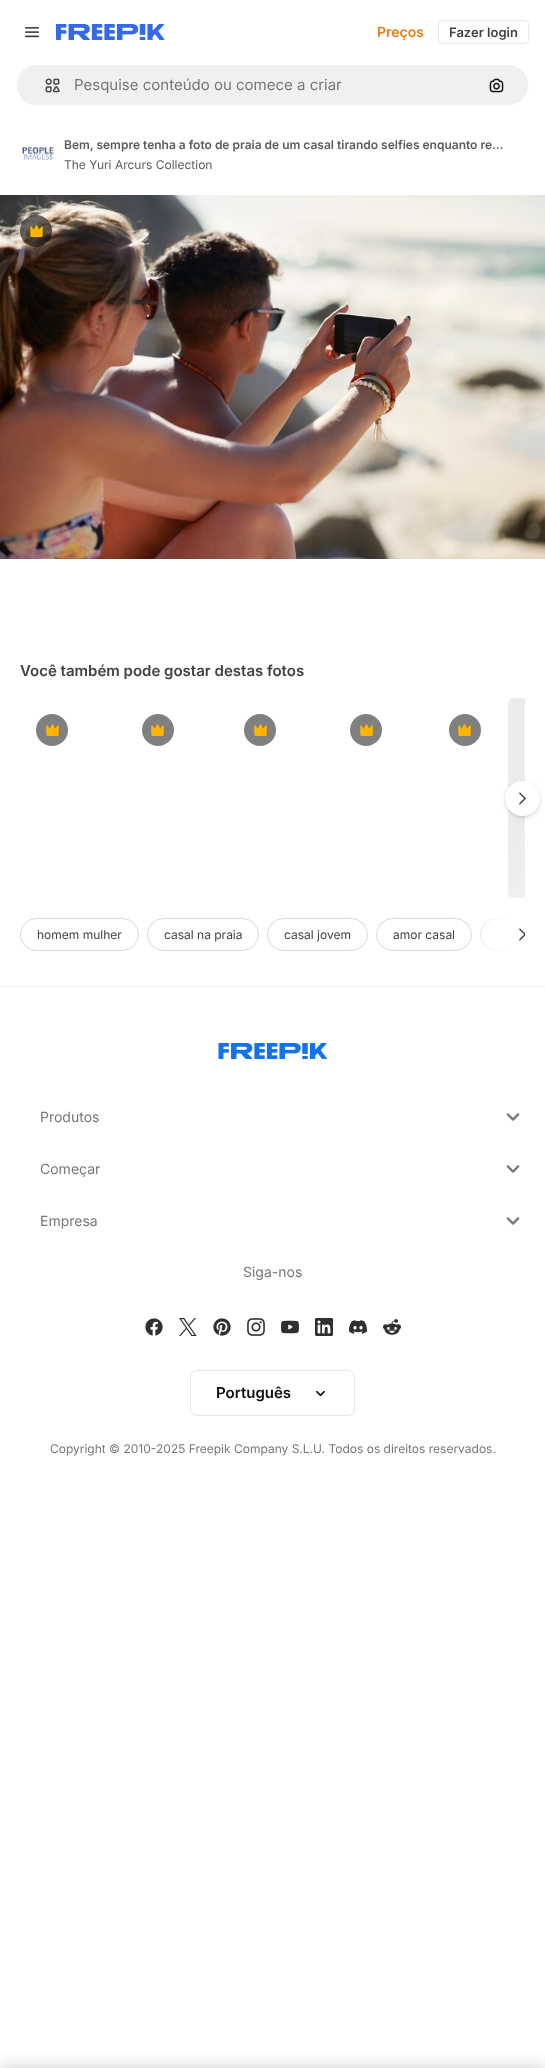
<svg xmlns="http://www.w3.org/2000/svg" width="545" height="2068">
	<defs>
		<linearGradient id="g1" gradientUnits="userSpaceOnUse" x1="511" y1="690" x2="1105" y2="906"><stop offset="0.08" stop-color="#ECECEC" /><stop offset="0.18" stop-color="#F5F5F5" /><stop offset="0.33" stop-color="#ECECEC" /></linearGradient>
		<clipPath id="clip1"><rect x="20" y="918" width="505" height="33" /></clipPath>
		<linearGradient id="g2" gradientUnits="userSpaceOnUse" x1="505" y1="935" x2="470" y2="935"><stop offset="0" stop-color="#FFFFFF" /><stop offset="1" stop-color="#FFFFFF" stop-opacity="0" /></linearGradient>
	</defs>
	<rect width="100%" height="100%" fill="#FFFFFF" />
	<image x="25" y="27" width="14" height="11" href="assets/img1.png" />
	<image x="56" y="24" width="109" height="16" href="assets/img2.png" />
	<text x="377" y="37" font-family="Inter" font-size="14" font-weight="600" fill="#EA7E11">Preços</text>
	<rect x="438.5" y="20.5" width="90" height="23" rx="3.5" fill="none" stroke="#E7E7E7" />
	<text x="449" y="37" font-family="Inter" font-size="13" font-weight="600" fill="#424242">Fazer login</text>
	<rect x="16.5" y="64.5" width="512" height="41" rx="20.5" fill="#F0F0F0" stroke="#FFFFFF" />
	<image x="45" y="78" width="15" height="15" href="assets/img3.png" />
	<text x="74" y="90" font-family="Inter" font-size="15" fill="#777777">Pesquise conteúdo ou comece a criar</text>
	<image x="489" y="78" width="15" height="15" href="assets/img4.png" />
	<text x="64" y="149" font-family="Inter" font-size="12" font-weight="600" fill="#5C5C5C">Bem, sempre tenha a foto de praia de um casal tirando selfies enquanto re…</text>
	<image x="22" y="147" width="32" height="13" href="assets/img5.png" />
	<text x="64" y="169" font-family="Inter" font-size="12" fill="#5C5C5C">The Yuri Arcurs Collection</text>
	<image x="0" y="195" width="545" height="364" href="assets/img6.png" />
	<circle cx="36" cy="231" r="16" fill="#0D0D0D" fill-opacity="0.6" />
	<image x="30" y="225" width="13" height="12" href="assets/img7.png" />
	<text x="20" y="676" font-family="Inter" font-size="15" font-weight="600" fill="#424242">Você também pode gostar destas fotos</text>
	<circle cx="52" cy="730" r="16" fill="#808080" />
	<image x="46" y="724" width="13" height="12" href="assets/img8.png" />
	<circle cx="158" cy="730" r="16" fill="#808080" />
	<image x="151" y="724" width="13" height="12" href="assets/img8.png" />
	<circle cx="260" cy="730" r="16" fill="#808080" />
	<image x="254" y="724" width="13" height="12" href="assets/img8.png" />
	<circle cx="366" cy="730" r="16" fill="#808080" />
	<image x="360" y="724" width="13" height="12" href="assets/img8.png" />
	<circle cx="465" cy="730" r="16" fill="#808080" />
	<image x="458" y="724" width="13" height="12" href="assets/img8.png" />
	<path d="M514 698H525V898H514C510.5 898 508 895.5 508 892V704C508 700.5 510.5 698 514 698Z" fill="url(#g1)" />
	<rect x="505" y="783" width="35" height="35" rx="17.5" fill="#374957" fill-opacity="0.15" filter="blur(2.5px)" />
	<rect x="505" y="782" width="35" height="35" rx="17.5" fill="#374957" fill-opacity="0.1" filter="blur(1px)" />
	<circle cx="522.5" cy="798.5" r="17.5" fill="#FFFFFF" />
	<image x="519" y="792" width="7" height="13" href="assets/img9.png" />
	<rect x="20.5" y="918.5" width="118" height="32" rx="16" fill="none" stroke="#D8D8D8" />
	<text x="37" y="939" font-family="Inter" font-size="12" fill="#424242">homem mulher</text>
	<rect x="147.5" y="918.5" width="111" height="32" rx="16" fill="none" stroke="#D8D8D8" />
	<text x="164" y="939" font-family="Inter" font-size="12" fill="#424242">casal na praia</text>
	<rect x="267.5" y="918.5" width="100" height="32" rx="16" fill="none" stroke="#D8D8D8" />
	<text x="284" y="939" font-family="Inter" font-size="12" fill="#424242">casal jovem</text>
	<rect x="376.5" y="918.5" width="95" height="32" rx="16" fill="none" stroke="#D8D8D8" />
	<text x="393" y="939" font-family="Inter" font-size="12" fill="#424242">amor casal</text>
	<g clip-path="url(#clip1)">
		<rect x="480.5" y="918.5" width="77" height="32" rx="16" fill="none" stroke="#D8D8D8" />
	</g>
	<rect x="505" y="918" width="20" height="33" fill="#FFFFFF" />
	<rect x="480" y="918" width="25" height="33" fill="url(#g2)" />
	<image x="519" y="928" width="6" height="13" href="assets/img10.png" />
	<rect x="0" y="986" width="545" height="1" fill="#F0F0F0" />
	<image x="218" y="1043" width="109" height="16" href="assets/img11.png" />
	<text x="40" y="1122" font-family="Inter" font-size="14" fill="#777777">Produtos</text>
	<image x="506" y="1113" width="14" height="8" href="assets/img12.png" />
	<text x="40" y="1174" font-family="Inter" font-size="14" fill="#777777">Começar</text>
	<image x="506" y="1165" width="14" height="8" href="assets/img12.png" />
	<text x="40" y="1226" font-family="Inter" font-size="14" fill="#777777">Empresa</text>
	<image x="506" y="1217" width="14" height="8" href="assets/img12.png" />
	<text x="243" y="1277" font-family="Inter" font-size="14" fill="#777777">Siga-nos</text>
	<image x="145" y="1318" width="18" height="18" href="assets/img13.png" />
	<image x="179" y="1318" width="18" height="18" href="assets/img14.png" />
	<image x="213" y="1318" width="18" height="18" href="assets/img15.png" />
	<image x="247" y="1318" width="18" height="18" href="assets/img16.png" />
	<image x="281" y="1320" width="18" height="14" href="assets/img17.png" />
	<image x="315" y="1318" width="18" height="18" href="assets/img18.png" />
	<image x="349" y="1320" width="18" height="14" href="assets/img19.png" />
	<image x="383" y="1319" width="18" height="16" href="assets/img20.png" />
	<rect x="190.5" y="1370.5" width="164" height="45" rx="6.5" fill="none" stroke="#E6E6E6" />
	<text x="216" y="1398" font-family="Inter" font-size="15" font-weight="600" fill="#0D0D0D">Português</text>
	<image x="316" y="1390" width="9" height="7" href="assets/img21.png" />
	<g font-family="Inter" font-size="12" fill="#777777">
		<text x="50" y="1453">Copyright © 2010-</text>
		<text x="156" y="1453">2025 Freepik Company S.L.U. Todos os direitos reservados.</text>
	</g>
	<rect x="0" y="2068" width="545" height="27" fill="#000000" fill-opacity="0.2" filter="blur(9px)" />
</svg>
